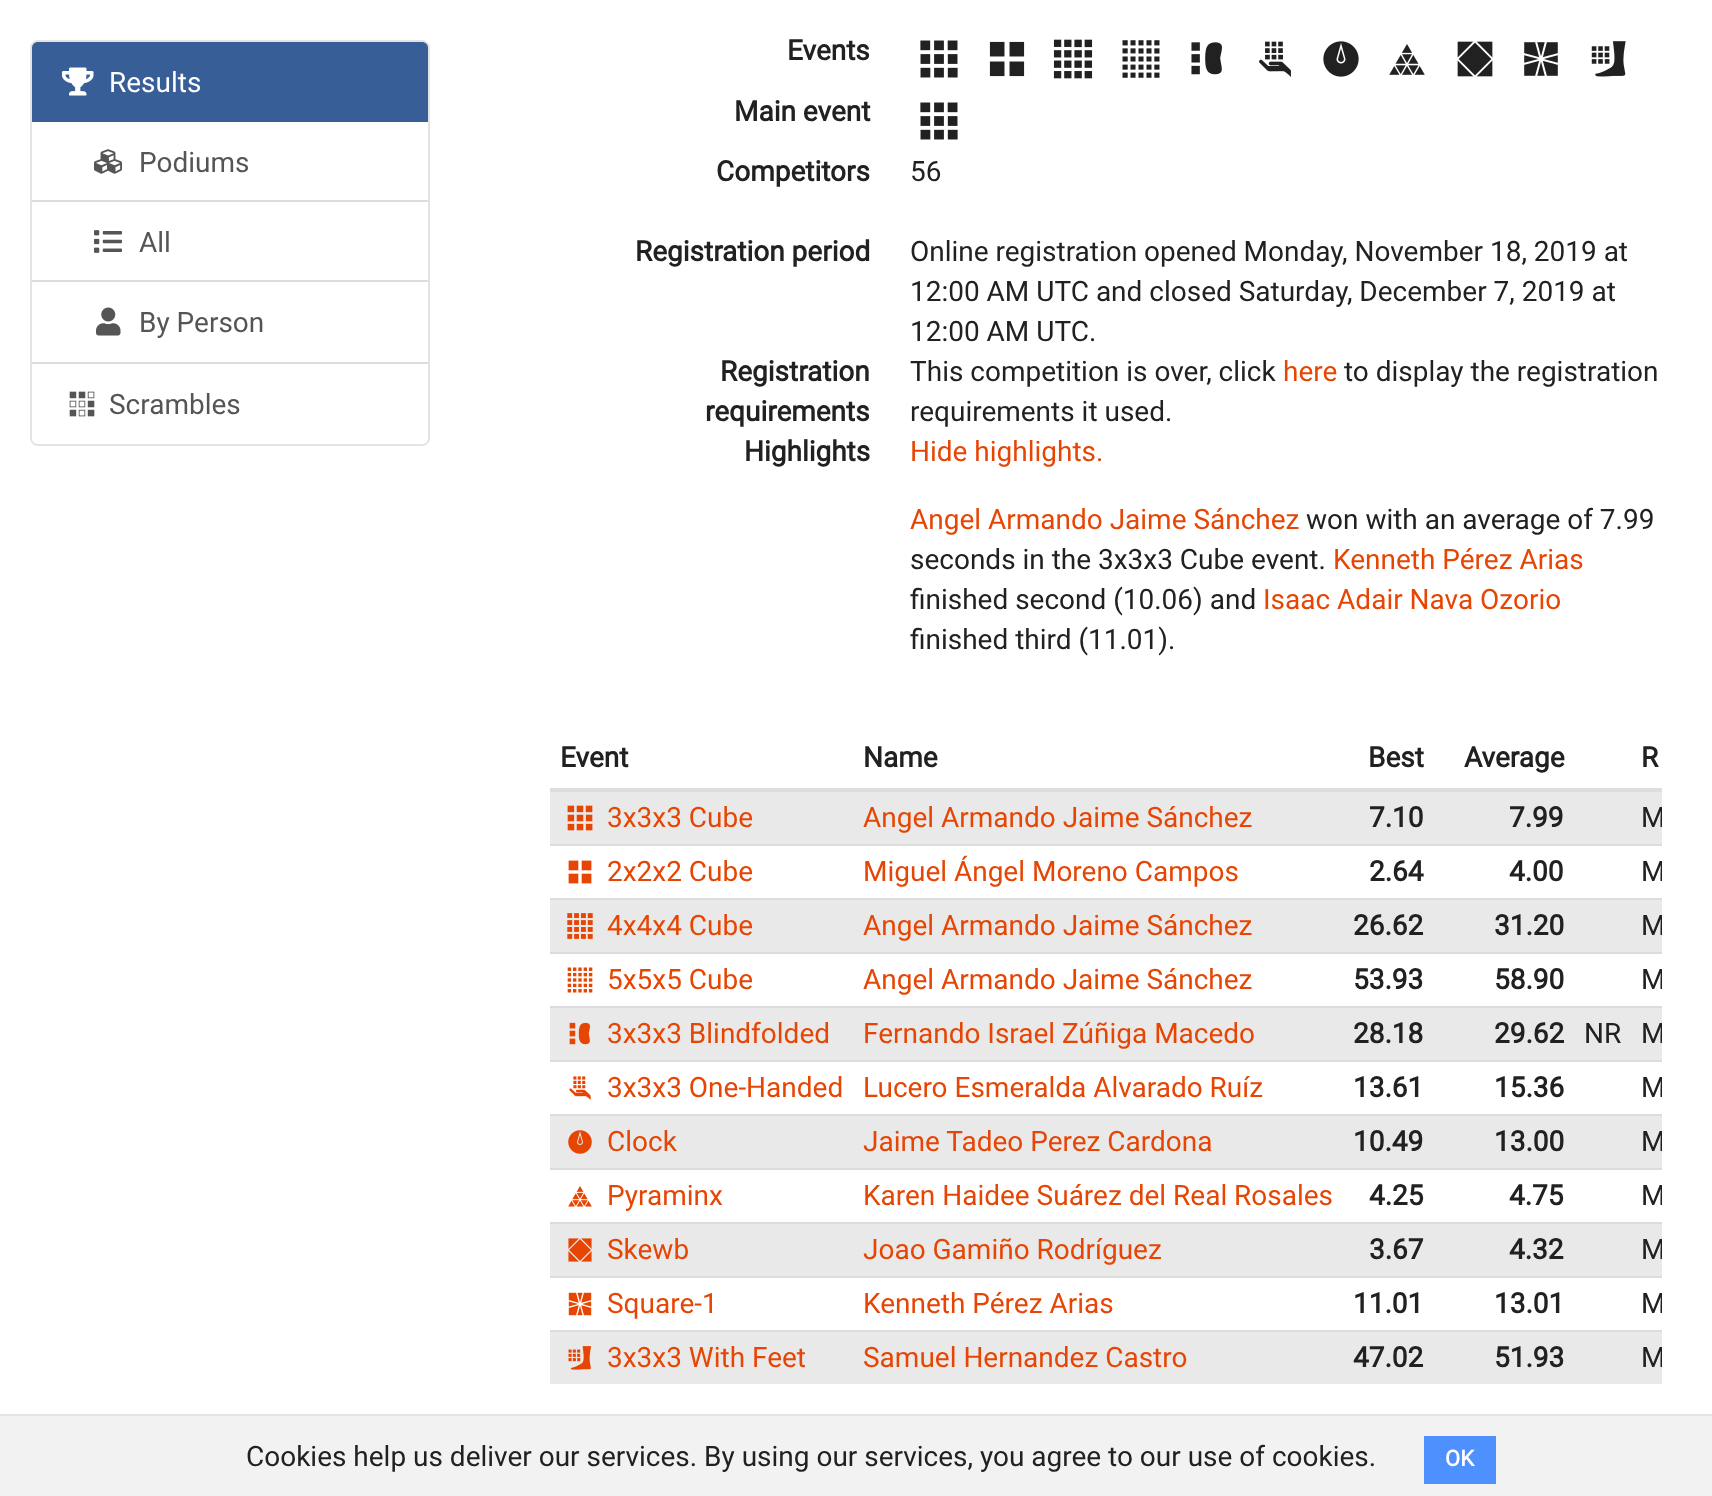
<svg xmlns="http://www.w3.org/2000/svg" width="1712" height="1496">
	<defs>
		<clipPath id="clip1"><rect x="550" y="728" width="1112" height="696" /></clipPath>
	</defs>
	<rect width="100%" height="100%" fill="#FFFFFF" />
	<rect x="31" y="41" width="398" height="404" rx="7" fill="none" stroke="#E3E3E3" stroke-width="2" />
	<path d="M38 42H422C425.5 42 428 44.5 428 48V122H32V48C32 44.5 34.5 42 38 42Z" fill="#375E97" />
	<image x="62" y="67" width="32" height="29" href="assets/img1.png" />
	<text x="109" y="92" font-family="Roboto" font-size="28" fill="#FFFFFF">Results</text>
	<image x="94" y="149" width="28" height="25" href="assets/img2.png" />
	<text x="139" y="172" font-family="Roboto" font-size="28" fill="#555555">Podiums</text>
	<rect x="32" y="200" width="396" height="2" fill="#DDDDDD" />
	<image x="94" y="230" width="28" height="23" href="assets/img3.png" />
	<text x="139" y="252" font-family="Roboto" font-size="28" fill="#555555">All</text>
	<rect x="32" y="280" width="396" height="2" fill="#DDDDDD" />
	<image x="96" y="307" width="25" height="29" href="assets/img4.png" />
	<text x="139" y="332" font-family="Roboto" font-size="28" fill="#555555">By Person</text>
	<path d="M32 364H428V438C428 441.5 425.5 444 422 444H38C34.5 444 32 441.5 32 438Z" fill="#FFFFFF" />
	<rect x="32" y="362" width="396" height="2" fill="#DDDDDD" />
	<image x="69" y="391" width="26" height="26" href="assets/img5.png" />
	<text x="109" y="414" font-family="Roboto" font-size="28" fill="#555555">Scrambles</text>
	<text x="787" y="60" font-family="Roboto" font-size="28" font-weight="700" fill="#212121">Events</text>
	<image x="920" y="40" width="38" height="38" href="assets/img6.png" />
	<image x="989" y="41" width="36" height="36" href="assets/img7.png" />
	<image x="1053" y="39" width="40" height="40" href="assets/img8.png" />
	<image x="1122" y="40" width="38" height="38" href="assets/img9.png" />
	<image x="1191" y="42" width="31" height="33" href="assets/img10.png" />
	<image x="1259" y="41" width="32" height="36" href="assets/img11.png" />
	<image x="1323" y="41" width="36" height="36" href="assets/img12.png" />
	<image x="1389" y="44" width="36" height="31" href="assets/img13.png" />
	<image x="1457" y="41" width="36" height="36" href="assets/img14.png" />
	<image x="1524" y="42" width="34" height="34" href="assets/img15.png" />
	<image x="1591" y="41" width="35" height="36" href="assets/img16.png" />
	<text x="734" y="121" font-family="Roboto" font-size="28" font-weight="700" fill="#212121">Main event</text>
	<image x="920" y="102" width="38" height="38" href="assets/img6.png" />
	<text x="716" y="181" font-family="Roboto" font-size="28" font-weight="700" fill="#212121">Competitors</text>
	<text x="910" y="181" font-family="Roboto" font-size="28" fill="#212121">56</text>
	<text x="635" y="261" font-family="Roboto" font-size="28" font-weight="700" fill="#212121">Registration period</text>
	<g font-family="Roboto" font-size="28" fill="#212121">
		<text x="910" y="261">Online registration opened Monday, November 18, 2019 at</text>
		<text x="910" y="301">12:00 AM UTC and closed Saturday, December 7, 2019 at</text>
		<text x="910" y="341">12:00 AM UTC.</text>
	</g>
	<g font-family="Roboto" font-size="28" font-weight="700" fill="#212121">
		<text x="720" y="381">Registration</text>
		<text x="705" y="421">requirements</text>
	</g>
	<text x="910" y="381" font-family="Roboto" font-size="28" fill="#212121">This competition is over, click</text>
	<text x="1283" y="381" font-family="Roboto" font-size="28" fill="#E64503">here</text>
	<g font-family="Roboto" font-size="28" fill="#212121">
		<text x="1344" y="381">to display the registration</text>
		<text x="910" y="421">requirements it used.</text>
	</g>
	<text x="744" y="461" font-family="Roboto" font-size="28" font-weight="700" fill="#212121">Highlights</text>
	<g font-family="Roboto" font-size="28" fill="#E64503">
		<text x="910" y="461">Hide highlights.</text>
		<text x="910" y="529">Angel Armando Jaime Sánchez</text>
	</g>
	<g font-family="Roboto" font-size="28" fill="#212121">
		<text x="1306" y="529">won with an average of 7.99</text>
		<text x="910" y="569">seconds in the 3x3x3 Cube event.</text>
	</g>
	<text x="1333" y="569" font-family="Roboto" font-size="28" fill="#E64503">Kenneth Pérez Arias</text>
	<text x="910" y="609" font-family="Roboto" font-size="28" fill="#212121">finished second (10.06) and</text>
	<text x="1263" y="609" font-family="Roboto" font-size="28" fill="#E64503">Isaac Adair Nava Ozorio</text>
	<text x="910" y="649" font-family="Roboto" font-size="28" fill="#212121">finished third (11.01).</text>
	<g font-family="Roboto" font-size="28" font-weight="700" fill="#212121">
		<text x="560" y="767">Event</text>
		<text x="863" y="767">Name</text>
		<text x="1368" y="767">Best</text>
		<text x="1464" y="767">Average</text>
	</g>
	<rect x="550" y="788" width="1112" height="4" fill="#DDDDDD" />
	<text x="1641" y="767" font-family="Roboto" font-size="28" font-weight="700" fill="#212121">R</text>
	<rect x="550" y="792" width="1112" height="52" fill="#E9E9E9" />
	<image x="567" y="805" width="26" height="26" href="assets/img17.png" />
	<g font-family="Roboto" font-size="28" fill="#E64503">
		<text x="607" y="827">3x3x3 Cube</text>
		<text x="863" y="827">Angel Armando Jaime Sánchez</text>
	</g>
	<g font-family="Roboto" font-size="28" font-weight="700" fill="#212121">
		<text x="1369" y="827">7.10</text>
		<text x="1509" y="827">7.99</text>
	</g>
	<g clip-path="url(#clip1)">
		<text x="1641" y="827" font-family="Roboto" font-size="28" fill="#212121">M</text>
	</g>
	<image x="568" y="860" width="24" height="24" href="assets/img18.png" />
	<g font-family="Roboto" font-size="28" fill="#E64503">
		<text x="607" y="881">2x2x2 Cube</text>
		<text x="863" y="881">Miguel Ángel Moreno Campos</text>
	</g>
	<g font-family="Roboto" font-size="28" font-weight="700" fill="#212121">
		<text x="1369" y="881">2.64</text>
		<text x="1509" y="881">4.00</text>
	</g>
	<rect x="550" y="844" width="1112" height="2" fill="#DDDDDD" />
	<g clip-path="url(#clip1)">
		<text x="1641" y="881" font-family="Roboto" font-size="28" fill="#212121">M</text>
	</g>
	<rect x="550" y="900" width="1112" height="52" fill="#E9E9E9" />
	<image x="567" y="913" width="26" height="26" href="assets/img19.png" />
	<g font-family="Roboto" font-size="28" fill="#E64503">
		<text x="607" y="935">4x4x4 Cube</text>
		<text x="863" y="935">Angel Armando Jaime Sánchez</text>
	</g>
	<g font-family="Roboto" font-size="28" font-weight="700" fill="#212121">
		<text x="1353" y="935">26.62</text>
		<text x="1494" y="935">31.20</text>
	</g>
	<rect x="550" y="898" width="1112" height="2" fill="#DDDDDD" />
	<g clip-path="url(#clip1)">
		<text x="1641" y="935" font-family="Roboto" font-size="28" fill="#212121">M</text>
	</g>
	<image x="567" y="967" width="26" height="26" href="assets/img20.png" />
	<g font-family="Roboto" font-size="28" fill="#E64503">
		<text x="607" y="989">5x5x5 Cube</text>
		<text x="863" y="989">Angel Armando Jaime Sánchez</text>
	</g>
	<g font-family="Roboto" font-size="28" font-weight="700" fill="#212121">
		<text x="1353" y="989">53.93</text>
		<text x="1494" y="989">58.90</text>
	</g>
	<rect x="550" y="952" width="1112" height="2" fill="#DDDDDD" />
	<g clip-path="url(#clip1)">
		<text x="1641" y="989" font-family="Roboto" font-size="28" fill="#212121">M</text>
	</g>
	<rect x="550" y="1008" width="1112" height="52" fill="#E9E9E9" />
	<image x="569" y="1022" width="21" height="23" href="assets/img21.png" />
	<g font-family="Roboto" font-size="28" fill="#E64503">
		<text x="607" y="1043">3x3x3 Blindfolded</text>
		<text x="863" y="1043">Fernando Israel Zúñiga Macedo</text>
	</g>
	<g font-family="Roboto" font-size="28" font-weight="700" fill="#212121">
		<text x="1353" y="1043">28.18</text>
		<text x="1494" y="1043">29.62</text>
	</g>
	<text x="1584" y="1043" font-family="Roboto" font-size="28" fill="#212121">NR</text>
	<rect x="550" y="1006" width="1112" height="2" fill="#DDDDDD" />
	<g clip-path="url(#clip1)">
		<text x="1641" y="1043" font-family="Roboto" font-size="28" fill="#212121">M</text>
	</g>
	<image x="569" y="1076" width="22" height="24" href="assets/img22.png" />
	<g font-family="Roboto" font-size="28" fill="#E64503">
		<text x="607" y="1097">3x3x3 One-Handed</text>
		<text x="863" y="1097">Lucero Esmeralda Alvarado Ruíz</text>
	</g>
	<g font-family="Roboto" font-size="28" font-weight="700" fill="#212121">
		<text x="1353" y="1097">13.61</text>
		<text x="1494" y="1097">15.36</text>
	</g>
	<rect x="550" y="1060" width="1112" height="2" fill="#DDDDDD" />
	<g clip-path="url(#clip1)">
		<text x="1641" y="1097" font-family="Roboto" font-size="28" fill="#212121">M</text>
	</g>
	<rect x="550" y="1116" width="1112" height="52" fill="#E9E9E9" />
	<image x="568" y="1130" width="24" height="24" href="assets/img23.png" />
	<g font-family="Roboto" font-size="28" fill="#E64503">
		<text x="607" y="1151">Clock</text>
		<text x="863" y="1151">Jaime Tadeo Perez Cardona</text>
	</g>
	<g font-family="Roboto" font-size="28" font-weight="700" fill="#212121">
		<text x="1353" y="1151">10.49</text>
		<text x="1494" y="1151">13.00</text>
	</g>
	<rect x="550" y="1114" width="1112" height="2" fill="#DDDDDD" />
	<g clip-path="url(#clip1)">
		<text x="1641" y="1151" font-family="Roboto" font-size="28" fill="#212121">M</text>
	</g>
	<image x="568" y="1186" width="24" height="21" href="assets/img24.png" />
	<g font-family="Roboto" font-size="28" fill="#E64503">
		<text x="607" y="1205">Pyraminx</text>
		<text x="863" y="1205">Karen Haidee Suárez del Real Rosales</text>
	</g>
	<g font-family="Roboto" font-size="28" font-weight="700" fill="#212121">
		<text x="1369" y="1205">4.25</text>
		<text x="1509" y="1205">4.75</text>
	</g>
	<rect x="550" y="1168" width="1112" height="2" fill="#DDDDDD" />
	<g clip-path="url(#clip1)">
		<text x="1641" y="1205" font-family="Roboto" font-size="28" fill="#212121">M</text>
	</g>
	<rect x="550" y="1224" width="1112" height="52" fill="#E9E9E9" />
	<image x="568" y="1238" width="24" height="24" href="assets/img25.png" />
	<g font-family="Roboto" font-size="28" fill="#E64503">
		<text x="607" y="1259">Skewb</text>
		<text x="863" y="1259">Joao Gamiño Rodríguez</text>
	</g>
	<g font-family="Roboto" font-size="28" font-weight="700" fill="#212121">
		<text x="1369" y="1259">3.67</text>
		<text x="1509" y="1259">4.32</text>
	</g>
	<rect x="550" y="1222" width="1112" height="2" fill="#DDDDDD" />
	<g clip-path="url(#clip1)">
		<text x="1641" y="1259" font-family="Roboto" font-size="28" fill="#212121">M</text>
	</g>
	<image x="568" y="1292" width="24" height="24" href="assets/img26.png" />
	<g font-family="Roboto" font-size="28" fill="#E64503">
		<text x="607" y="1313">Square-1</text>
		<text x="863" y="1313">Kenneth Pérez Arias</text>
	</g>
	<g font-family="Roboto" font-size="28" font-weight="700" fill="#212121">
		<text x="1353" y="1313">11.01</text>
		<text x="1494" y="1313">13.01</text>
	</g>
	<rect x="550" y="1276" width="1112" height="2" fill="#DDDDDD" />
	<g clip-path="url(#clip1)">
		<text x="1641" y="1313" font-family="Roboto" font-size="28" fill="#212121">M</text>
	</g>
	<rect x="550" y="1332" width="1112" height="52" fill="#E9E9E9" />
	<image x="568" y="1346" width="24" height="24" href="assets/img27.png" />
	<g font-family="Roboto" font-size="28" fill="#E64503">
		<text x="607" y="1367">3x3x3 With Feet</text>
		<text x="863" y="1367">Samuel Hernandez Castro</text>
	</g>
	<g font-family="Roboto" font-size="28" font-weight="700" fill="#212121">
		<text x="1353" y="1367">47.02</text>
		<text x="1494" y="1367">51.93</text>
	</g>
	<rect x="550" y="1330" width="1112" height="2" fill="#DDDDDD" />
	<g clip-path="url(#clip1)">
		<text x="1641" y="1367" font-family="Roboto" font-size="28" fill="#212121">M</text>
	</g>
	<rect x="0" y="1416" width="1712" height="80" fill="#F2F2F2" />
	<rect x="0" y="1414" width="1712" height="2" fill="#E4E4E4" />
	<text x="246" y="1466" font-family="Roboto" font-size="28" fill="#212121">Cookies help us deliver our services. By using our services, you agree to our use of cookies.</text>
	<rect x="1424" y="1436" width="72" height="48" fill="#4D90FE" />
	<text x="1445" y="1466" font-family="Roboto" font-size="22" font-weight="700" fill="#FFFFFF">OK</text>
</svg>
